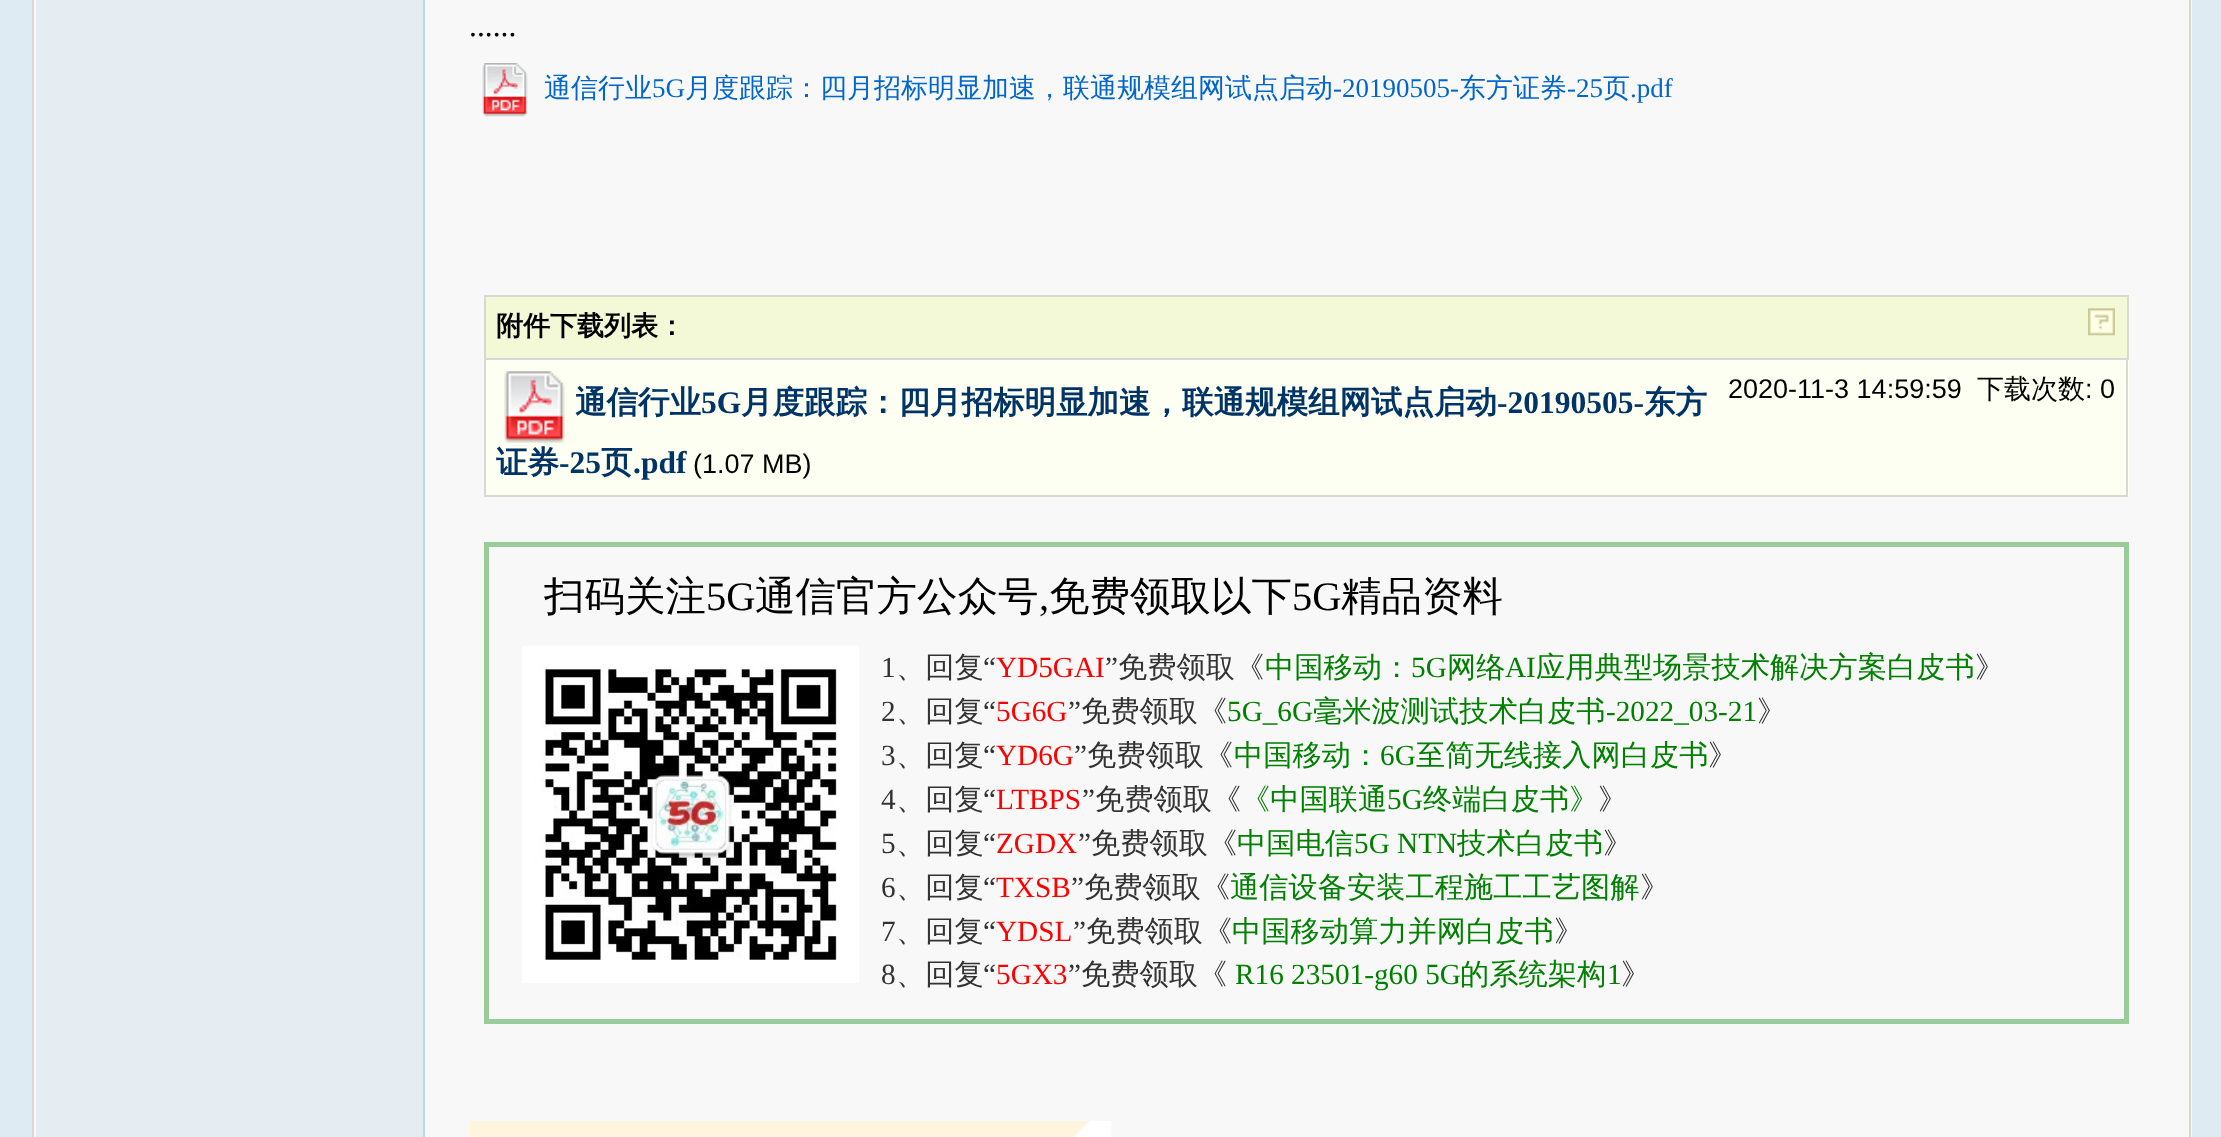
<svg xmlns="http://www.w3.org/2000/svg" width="2221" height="1137">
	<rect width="100%" height="100%" fill="#DEEBF3" />
	<rect x="34" y="0" width="2158" height="1137" fill="#F8F8F8" />
	<rect x="2189" y="0" width="2" height="1137" fill="#D9D9D4" />
	<rect x="32" y="0" width="2" height="1137" fill="#D9D9D4" />
	<rect x="423" y="0" width="2" height="1137" fill="#C2D5E3" />
	<rect x="36" y="0" width="387" height="1137" fill="#E5EDF2" />
	<text x="469" y="36" font-family="Liberation Serif" font-size="31.5" fill="#000000">......</text>
	<image x="482" y="63" width="46" height="54" href="assets/img1.png" />
	<text x="544" y="97" font-family="WenQuanYi Zen Hei" font-size="27" font-weight="500" fill="#0066CC">通信行业</text>
	<text x="652" y="97" font-family="Liberation Serif" font-size="27" fill="#0066CC">5G</text>
	<text x="685" y="97" font-family="WenQuanYi Zen Hei" font-size="27" font-weight="500" fill="#0066CC">月度跟踪：四月招标明显加速，联通规模组网试点启动</text>
	<text x="1333" y="97" font-family="Liberation Serif" font-size="27" fill="#0066CC">-20190505-</text>
	<text x="1459" y="97" font-family="WenQuanYi Zen Hei" font-size="27" font-weight="500" fill="#0066CC">东方证券</text>
	<text x="1567" y="97" font-family="Liberation Serif" font-size="27" fill="#0066CC">-25</text>
	<text x="1603" y="97" font-family="WenQuanYi Zen Hei" font-size="27" font-weight="500" fill="#0066CC">页</text>
	<text x="1630" y="97" font-family="Liberation Serif" font-size="27" fill="#0066CC">.pdf</text>
	<rect x="485" y="296" width="1643" height="63" fill="#F3F8D7" stroke="#D9D9D4" stroke-width="2" />
	<text x="496" y="335" font-family="WenQuanYi Zen Hei" font-size="27" font-weight="700" fill="#000000">附件下载列表：</text>
	<image x="2088" y="308" width="27" height="28" href="assets/img2.png" />
	<rect x="486" y="360" width="1643" height="137" fill="#FDFFF2" />
	<rect x="2126" y="360" width="2" height="137" fill="#D9D9D4" />
	<rect x="484" y="360" width="2" height="137" fill="#D9D9D4" />
	<rect x="486" y="495" width="1640" height="2" fill="#D9D9D4" />
	<image x="504" y="371" width="61" height="72" href="assets/img3.png" />
	<text x="575" y="413" font-family="WenQuanYi Zen Hei" font-size="31.5" font-weight="700" fill="#003366">通信行业</text>
	<text x="701" y="413" font-family="Liberation Serif" font-size="31.5" font-weight="700" fill="#003366">5G</text>
	<text x="741" y="413" font-family="WenQuanYi Zen Hei" font-size="31.5" font-weight="700" fill="#003366">月度跟踪：四月招标明显加速，联通规模组网试点启动</text>
	<text x="1497" y="413" font-family="Liberation Serif" font-size="31.5" font-weight="700" fill="#003366">-20190505-</text>
	<text x="1644" y="413" font-family="WenQuanYi Zen Hei" font-size="31.5" font-weight="700" fill="#003366">东方</text>
	<text x="1728" y="398" font-family="Liberation Sans" font-size="27" fill="#000000">2020-11-3 14:59:59</text>
	<text x="1977" y="398" font-family="WenQuanYi Zen Hei" font-size="27" font-weight="500" fill="#000000">下载次数</text>
	<text x="2085" y="398" font-family="Liberation Sans" font-size="27" fill="#000000">: 0</text>
	<text x="496" y="473" font-family="WenQuanYi Zen Hei" font-size="31.5" font-weight="700" fill="#003366">证券</text>
	<text x="559" y="473" font-family="Liberation Serif" font-size="31.5" font-weight="700" fill="#003366">-25</text>
	<text x="601" y="473" font-family="WenQuanYi Zen Hei" font-size="31.5" font-weight="700" fill="#003366">页</text>
	<text x="633" y="473" font-family="Liberation Serif" font-size="31.5" font-weight="700" fill="#003366">.pdf</text>
	<text x="693" y="473" font-family="Liberation Sans" font-size="27" fill="#000000">(1.07 MB)</text>
	<rect x="486.5" y="544.5" width="1640" height="477" fill="none" stroke="#99CC99" stroke-width="5" />
	<text x="544" y="610" font-family="WenQuanYi Zen Hei" font-size="40.5" font-weight="500" fill="#000000">扫码关注</text>
	<text x="706" y="610" font-family="Liberation Serif" font-size="40.5" fill="#000000">5G</text>
	<text x="755" y="610" font-family="WenQuanYi Zen Hei" font-size="40.5" font-weight="500" fill="#000000">通信官方公众号</text>
	<text x="1039" y="610" font-family="Liberation Serif" font-size="40.5" fill="#000000">,</text>
	<text x="1049" y="610" font-family="WenQuanYi Zen Hei" font-size="40.5" font-weight="500" fill="#000000">免费领取以下</text>
	<text x="1292" y="610" font-family="Liberation Serif" font-size="40.5" fill="#000000">5G</text>
	<text x="1341" y="610" font-family="WenQuanYi Zen Hei" font-size="40.5" font-weight="500" fill="#000000">精品资料</text>
	<image x="522" y="646" width="337" height="337" href="assets/img4.png" />
	<text x="881" y="677" font-family="Liberation Serif" font-size="29.25" fill="#333333">1</text>
	<text x="896" y="677" font-family="WenQuanYi Zen Hei" font-size="29.25" font-weight="500" fill="#333333">、回复</text>
	<text x="983" y="677" font-family="Liberation Serif" font-size="29.25" fill="#333333">“</text>
	<text x="996" y="677" font-family="Liberation Serif" font-size="29.25" fill="#FF0000">YD5GAI</text>
	<text x="1105" y="677" font-family="Liberation Serif" font-size="29.25" fill="#333333">”</text>
	<text x="1118" y="677" font-family="WenQuanYi Zen Hei" font-size="29.25" font-weight="500" fill="#333333">免费领取《</text>
	<text x="1265" y="677" font-family="WenQuanYi Zen Hei" font-size="29.25" font-weight="500" fill="#008000">中国移动：</text>
	<text x="1411" y="677" font-family="Liberation Serif" font-size="29.25" fill="#008000">5G</text>
	<text x="1447" y="677" font-family="WenQuanYi Zen Hei" font-size="29.25" font-weight="500" fill="#008000">网络</text>
	<text x="1505" y="677" font-family="Liberation Serif" font-size="29.25" fill="#008000">AI</text>
	<text x="1536" y="677" font-family="WenQuanYi Zen Hei" font-size="29.25" font-weight="500" fill="#008000">应用典型场景技术解决方案白皮书</text>
	<text x="1975" y="677" font-family="WenQuanYi Zen Hei" font-size="29.25" font-weight="500" fill="#333333">》</text>
	<text x="881" y="721" font-family="Liberation Serif" font-size="29.25" fill="#333333">2</text>
	<text x="896" y="721" font-family="WenQuanYi Zen Hei" font-size="29.25" font-weight="500" fill="#333333">、回复</text>
	<text x="983" y="721" font-family="Liberation Serif" font-size="29.25" fill="#333333">“</text>
	<text x="996" y="721" font-family="Liberation Serif" font-size="29.25" fill="#FF0000">5G6G</text>
	<text x="1068" y="721" font-family="Liberation Serif" font-size="29.25" fill="#333333">”</text>
	<text x="1081" y="721" font-family="WenQuanYi Zen Hei" font-size="29.25" font-weight="500" fill="#333333">免费领取《</text>
	<text x="1227" y="721" font-family="Liberation Serif" font-size="29.25" fill="#008000">5G_6G</text>
	<text x="1313" y="721" font-family="WenQuanYi Zen Hei" font-size="29.25" font-weight="500" fill="#008000">毫米波测试技术白皮书</text>
	<text x="1606" y="721" font-family="Liberation Serif" font-size="29.25" fill="#008000">-2022_03-21</text>
	<text x="1757" y="721" font-family="WenQuanYi Zen Hei" font-size="29.25" font-weight="500" fill="#333333">》</text>
	<text x="881" y="765" font-family="Liberation Serif" font-size="29.25" fill="#333333">3</text>
	<text x="896" y="765" font-family="WenQuanYi Zen Hei" font-size="29.25" font-weight="500" fill="#333333">、回复</text>
	<text x="983" y="765" font-family="Liberation Serif" font-size="29.25" fill="#333333">“</text>
	<text x="996" y="765" font-family="Liberation Serif" font-size="29.25" fill="#FF0000">YD6G</text>
	<text x="1074" y="765" font-family="Liberation Serif" font-size="29.25" fill="#333333">”</text>
	<text x="1087" y="765" font-family="WenQuanYi Zen Hei" font-size="29.25" font-weight="500" fill="#333333">免费领取《</text>
	<text x="1234" y="765" font-family="WenQuanYi Zen Hei" font-size="29.25" font-weight="500" fill="#008000">中国移动：</text>
	<text x="1380" y="765" font-family="Liberation Serif" font-size="29.25" fill="#008000">6G</text>
	<text x="1416" y="765" font-family="WenQuanYi Zen Hei" font-size="29.25" font-weight="500" fill="#008000">至简无线接入网白皮书</text>
	<text x="1708" y="765" font-family="WenQuanYi Zen Hei" font-size="29.25" font-weight="500" fill="#333333">》</text>
	<text x="881" y="809" font-family="Liberation Serif" font-size="29.25" fill="#333333">4</text>
	<text x="896" y="809" font-family="WenQuanYi Zen Hei" font-size="29.25" font-weight="500" fill="#333333">、回复</text>
	<text x="983" y="809" font-family="Liberation Serif" font-size="29.25" fill="#333333">“</text>
	<text x="996" y="809" font-family="Liberation Serif" font-size="29.25" fill="#FF0000">LTBPS</text>
	<text x="1082" y="809" font-family="Liberation Serif" font-size="29.25" fill="#333333">”</text>
	<text x="1095" y="809" font-family="WenQuanYi Zen Hei" font-size="29.25" font-weight="500" fill="#333333">免费领取《</text>
	<text x="1241" y="809" font-family="WenQuanYi Zen Hei" font-size="29.25" font-weight="500" fill="#008000">《中国联通</text>
	<text x="1387" y="809" font-family="Liberation Serif" font-size="29.25" fill="#008000">5G</text>
	<text x="1423" y="809" font-family="WenQuanYi Zen Hei" font-size="29.25" font-weight="500" fill="#008000">终端白皮书》</text>
	<text x="1598" y="809" font-family="WenQuanYi Zen Hei" font-size="29.25" font-weight="500" fill="#333333">》</text>
	<text x="881" y="853" font-family="Liberation Serif" font-size="29.25" fill="#333333">5</text>
	<text x="896" y="853" font-family="WenQuanYi Zen Hei" font-size="29.25" font-weight="500" fill="#333333">、回复</text>
	<text x="983" y="853" font-family="Liberation Serif" font-size="29.25" fill="#333333">“</text>
	<text x="996" y="853" font-family="Liberation Serif" font-size="29.25" fill="#FF0000">ZGDX</text>
	<text x="1078" y="853" font-family="Liberation Serif" font-size="29.25" fill="#333333">”</text>
	<text x="1091" y="853" font-family="WenQuanYi Zen Hei" font-size="29.25" font-weight="500" fill="#333333">免费领取《</text>
	<text x="1237" y="853" font-family="WenQuanYi Zen Hei" font-size="29.25" font-weight="500" fill="#008000">中国电信</text>
	<text x="1354" y="853" font-family="Liberation Serif" font-size="29.25" fill="#008000">5G NTN</text>
	<text x="1457" y="853" font-family="WenQuanYi Zen Hei" font-size="29.25" font-weight="500" fill="#008000">技术白皮书</text>
	<text x="1603" y="853" font-family="WenQuanYi Zen Hei" font-size="29.25" font-weight="500" fill="#333333">》</text>
	<text x="881" y="897" font-family="Liberation Serif" font-size="29.25" fill="#333333">6</text>
	<text x="896" y="897" font-family="WenQuanYi Zen Hei" font-size="29.25" font-weight="500" fill="#333333">、回复</text>
	<text x="983" y="897" font-family="Liberation Serif" font-size="29.25" fill="#333333">“</text>
	<text x="996" y="897" font-family="Liberation Serif" font-size="29.25" fill="#FF0000">TXSB</text>
	<text x="1071" y="897" font-family="Liberation Serif" font-size="29.25" fill="#333333">”</text>
	<text x="1084" y="897" font-family="WenQuanYi Zen Hei" font-size="29.25" font-weight="500" fill="#333333">免费领取《</text>
	<text x="1230" y="897" font-family="WenQuanYi Zen Hei" font-size="29.25" font-weight="500" fill="#008000">通信设备安装工程施工工艺图解</text>
	<text x="1640" y="897" font-family="WenQuanYi Zen Hei" font-size="29.25" font-weight="500" fill="#333333">》</text>
	<text x="881" y="941" font-family="Liberation Serif" font-size="29.25" fill="#333333">7</text>
	<text x="896" y="941" font-family="WenQuanYi Zen Hei" font-size="29.25" font-weight="500" fill="#333333">、回复</text>
	<text x="983" y="941" font-family="Liberation Serif" font-size="29.25" fill="#333333">“</text>
	<text x="996" y="941" font-family="Liberation Serif" font-size="29.25" fill="#FF0000">YDSL</text>
	<text x="1073" y="941" font-family="Liberation Serif" font-size="29.25" fill="#333333">”</text>
	<text x="1086" y="941" font-family="WenQuanYi Zen Hei" font-size="29.25" font-weight="500" fill="#333333">免费领取《</text>
	<text x="1232" y="941" font-family="WenQuanYi Zen Hei" font-size="29.25" font-weight="500" fill="#008000">中国移动算力并网白皮书</text>
	<text x="1554" y="941" font-family="WenQuanYi Zen Hei" font-size="29.25" font-weight="500" fill="#333333">》</text>
	<text x="881" y="984" font-family="Liberation Serif" font-size="29.25" fill="#333333">8</text>
	<text x="896" y="984" font-family="WenQuanYi Zen Hei" font-size="29.25" font-weight="500" fill="#333333">、回复</text>
	<text x="983" y="984" font-family="Liberation Serif" font-size="29.25" fill="#333333">“</text>
	<text x="996" y="984" font-family="Liberation Serif" font-size="29.25" fill="#FF0000">5GX3</text>
	<text x="1068" y="984" font-family="Liberation Serif" font-size="29.25" fill="#333333">”</text>
	<text x="1081" y="984" font-family="WenQuanYi Zen Hei" font-size="29.25" font-weight="500" fill="#333333">免费领取《</text>
	<text x="1235" y="984" font-family="Liberation Serif" font-size="29.25" fill="#008000">R16 23501-g60 5G</text>
	<text x="1460" y="984" font-family="WenQuanYi Zen Hei" font-size="29.25" font-weight="500" fill="#008000">的系统架构</text>
	<text x="1607" y="984" font-family="Liberation Serif" font-size="29.25" fill="#008000">1</text>
	<text x="1621" y="984" font-family="WenQuanYi Zen Hei" font-size="29.25" font-weight="500" fill="#333333">》</text>
	<rect x="470" y="1121" width="642" height="16" fill="#FFF4DD" />
	<image x="1073" y="1121" width="39" height="16" href="assets/img5.png" />
</svg>
